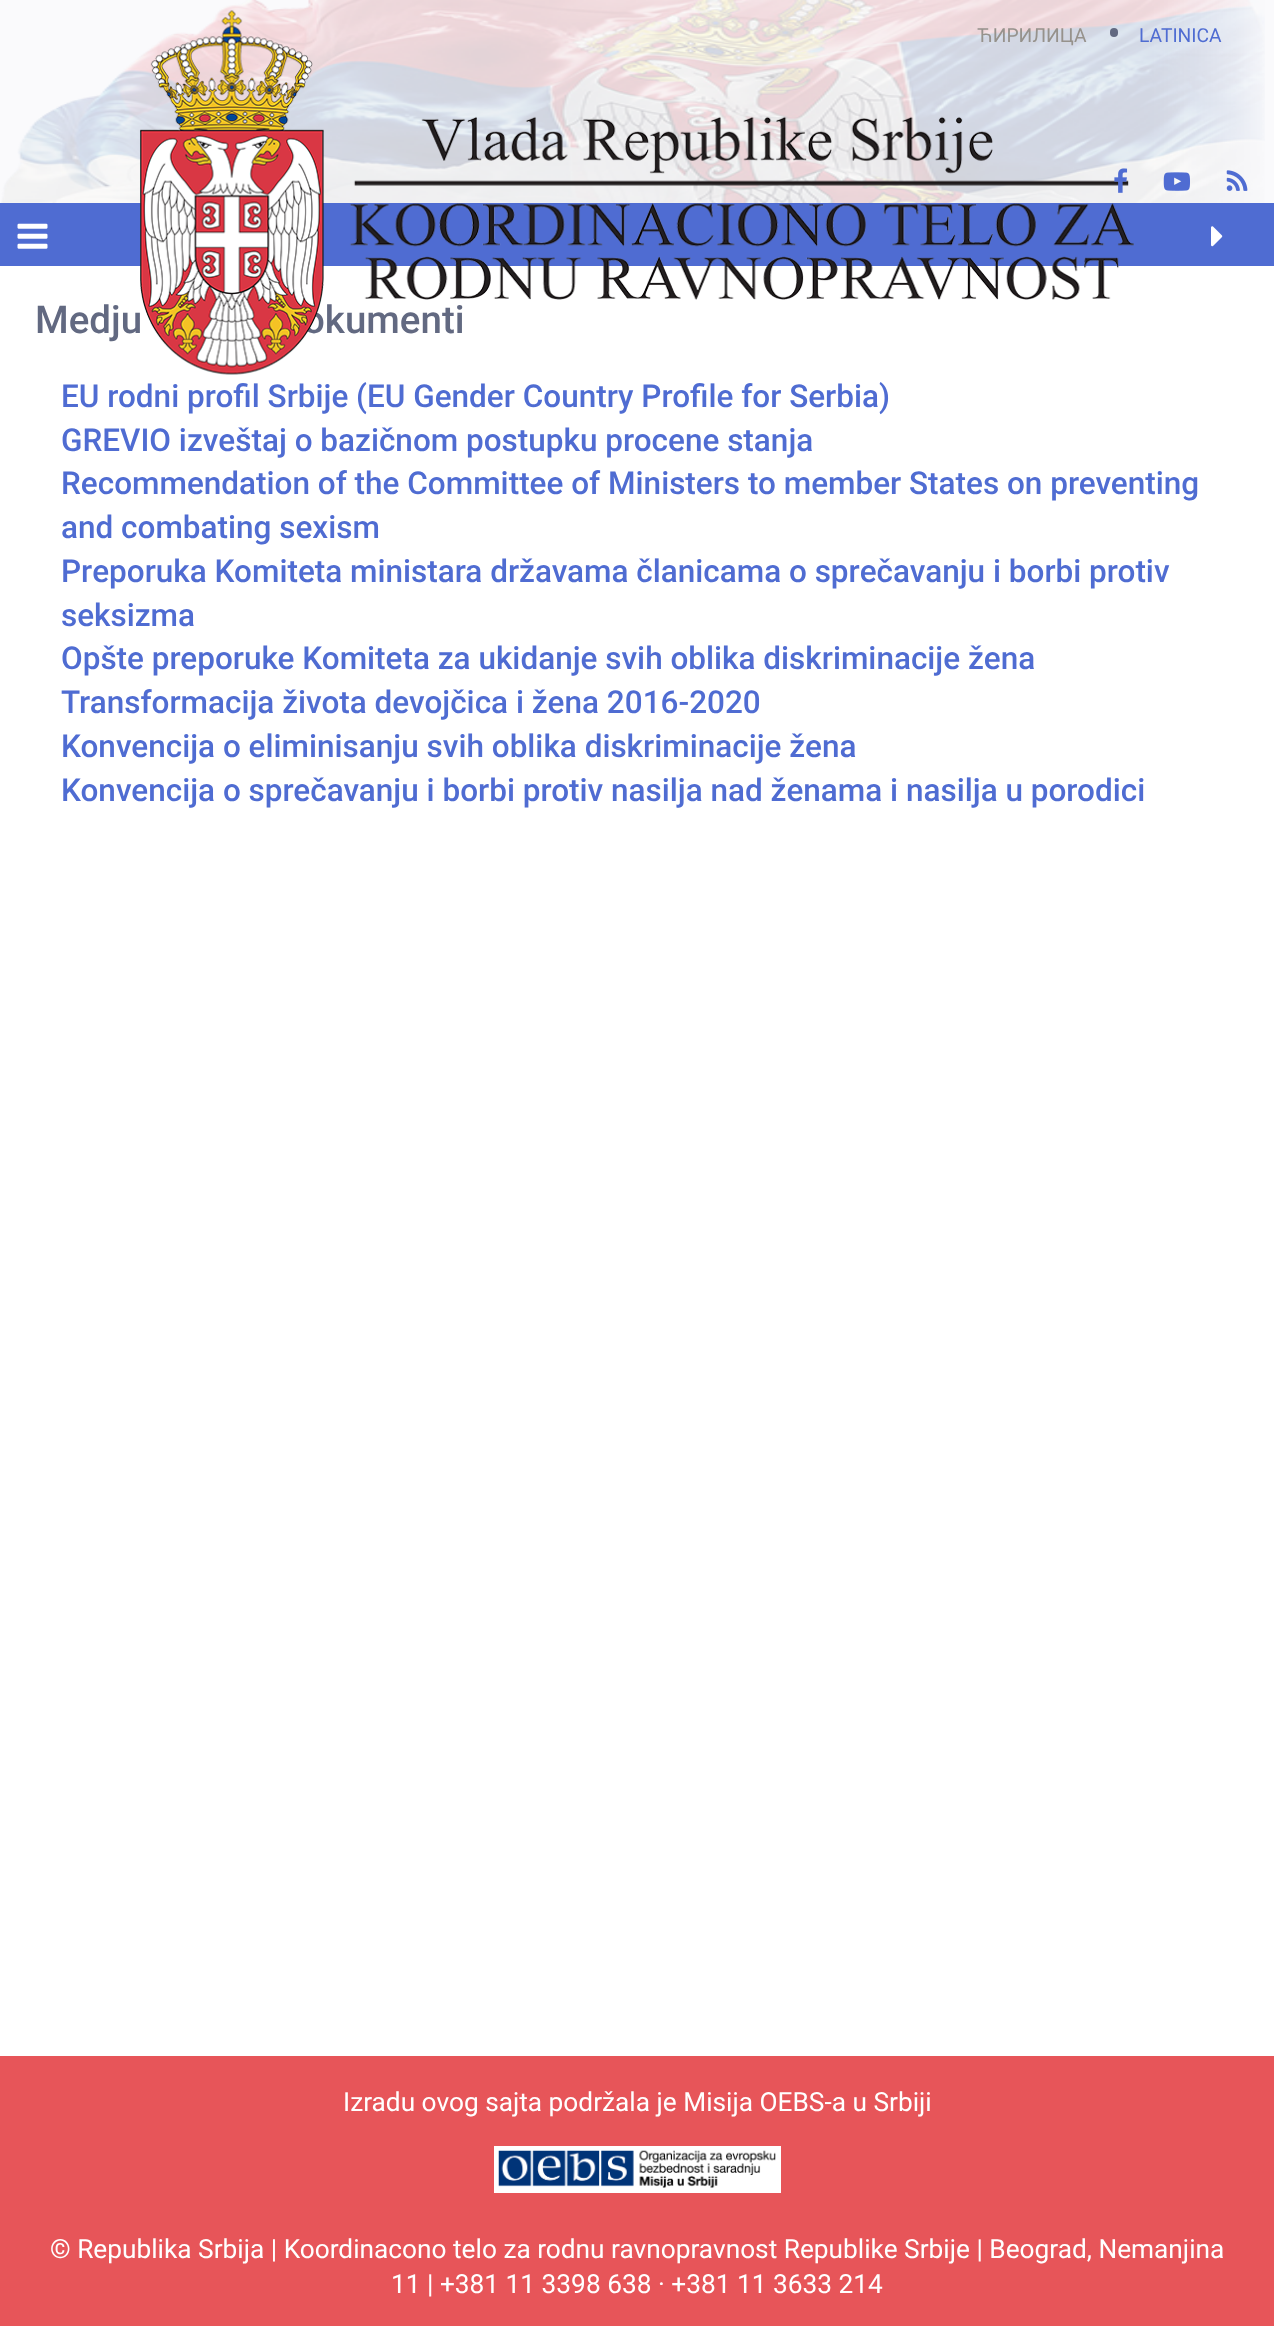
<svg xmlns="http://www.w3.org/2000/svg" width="1274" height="2326">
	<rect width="100%" height="100%" fill="#FFFFFF" />
	<rect x="0" y="0" width="1274" height="203" fill="#FAFAFC" />
	<image x="1" y="0" width="1264" height="203" href="assets/img1.png" />
	<rect x="0" y="203" width="1274" height="63" fill="#4F6CD2" />
	<text x="303" y="333" font-family="Roboto" font-size="38.5" font-weight="500" fill="#626981">okumenti</text>
	<image x="140" y="10" width="994" height="365" href="assets/img2.png" />
	<text x="977" y="42" font-family="Roboto" font-size="19.25" fill="#96928C">ЋИРИЛИЦА</text>
	<rect x="1110" y="28" width="8" height="9" rx="4" fill="#626981" />
	<text x="1139" y="42" font-family="Roboto" font-size="19.25" fill="#4F6CD2">LATINICA</text>
	<image x="1114" y="168" width="14" height="25" href="assets/img3.png" />
	<image x="1163" y="172" width="27" height="19" href="assets/img4.png" />
	<image x="1226" y="170" width="22" height="21" href="assets/img5.png" />
	<image x="17" y="223" width="31" height="26" href="assets/img6.png" />
	<image x="1211" y="226" width="12" height="21" href="assets/img7.png" />
	<text x="35" y="333" font-family="Roboto" font-size="38.5" font-weight="500" fill="#626981">Medju</text>
	<g font-family="Roboto" font-size="31.5" font-weight="500" fill="#4F6CD2">
		<text x="61" y="407">EU rodni profil Srbijе (EU Gender Country Profile for Serbia)</text>
		<text x="61" y="451">GREVIO izvеštaj o bazičnom postupku procеnе stanja</text>
		<text x="61" y="494">Recommendation of the Committee of Ministers to member States on preventing</text>
		<text x="61" y="538">and combating sexism</text>
		<text x="61" y="582">Prеporuka Komitеta ministara državama članicama o sprеčavanju i borbi protiv</text>
		<text x="61" y="626">sеksizma</text>
		<text x="61" y="669">Opšte preporuke Komiteta za ukidanje svih oblika diskriminacije žena</text>
		<text x="61" y="713">Transformacija života devojčica i žena 2016-2020</text>
		<text x="61" y="757">Konvencija o eliminisanju svih oblika diskriminacije žena</text>
		<text x="61" y="801">Konvencija o sprečavanju i borbi protiv nasilja nad ženama i nasilja u porodici</text>
	</g>
	<rect x="0" y="2056" width="1274" height="270" fill="#E75559" />
	<text x="343" y="2111" font-family="Roboto" font-size="26.25" fill="#FFFFFF">Izradu ovog sajta podržala je Misija OEBS-а u Srbiji</text>
	<rect x="494" y="2146" width="287" height="47" fill="#FFFFFF" />
	<image x="498" y="2150" width="278" height="38" href="assets/img8.png" />
	<g font-family="Roboto" font-size="26.25" fill="#FFFFFF">
		<text x="50" y="2258">© Republika Srbija | Koordinacono telo za rodnu ravnopravnost Republike Srbije | Beograd, Nemanjina</text>
		<text x="391" y="2293">11 | +381 11 3398 638 · +381 11 3633 214</text>
	</g>
</svg>
